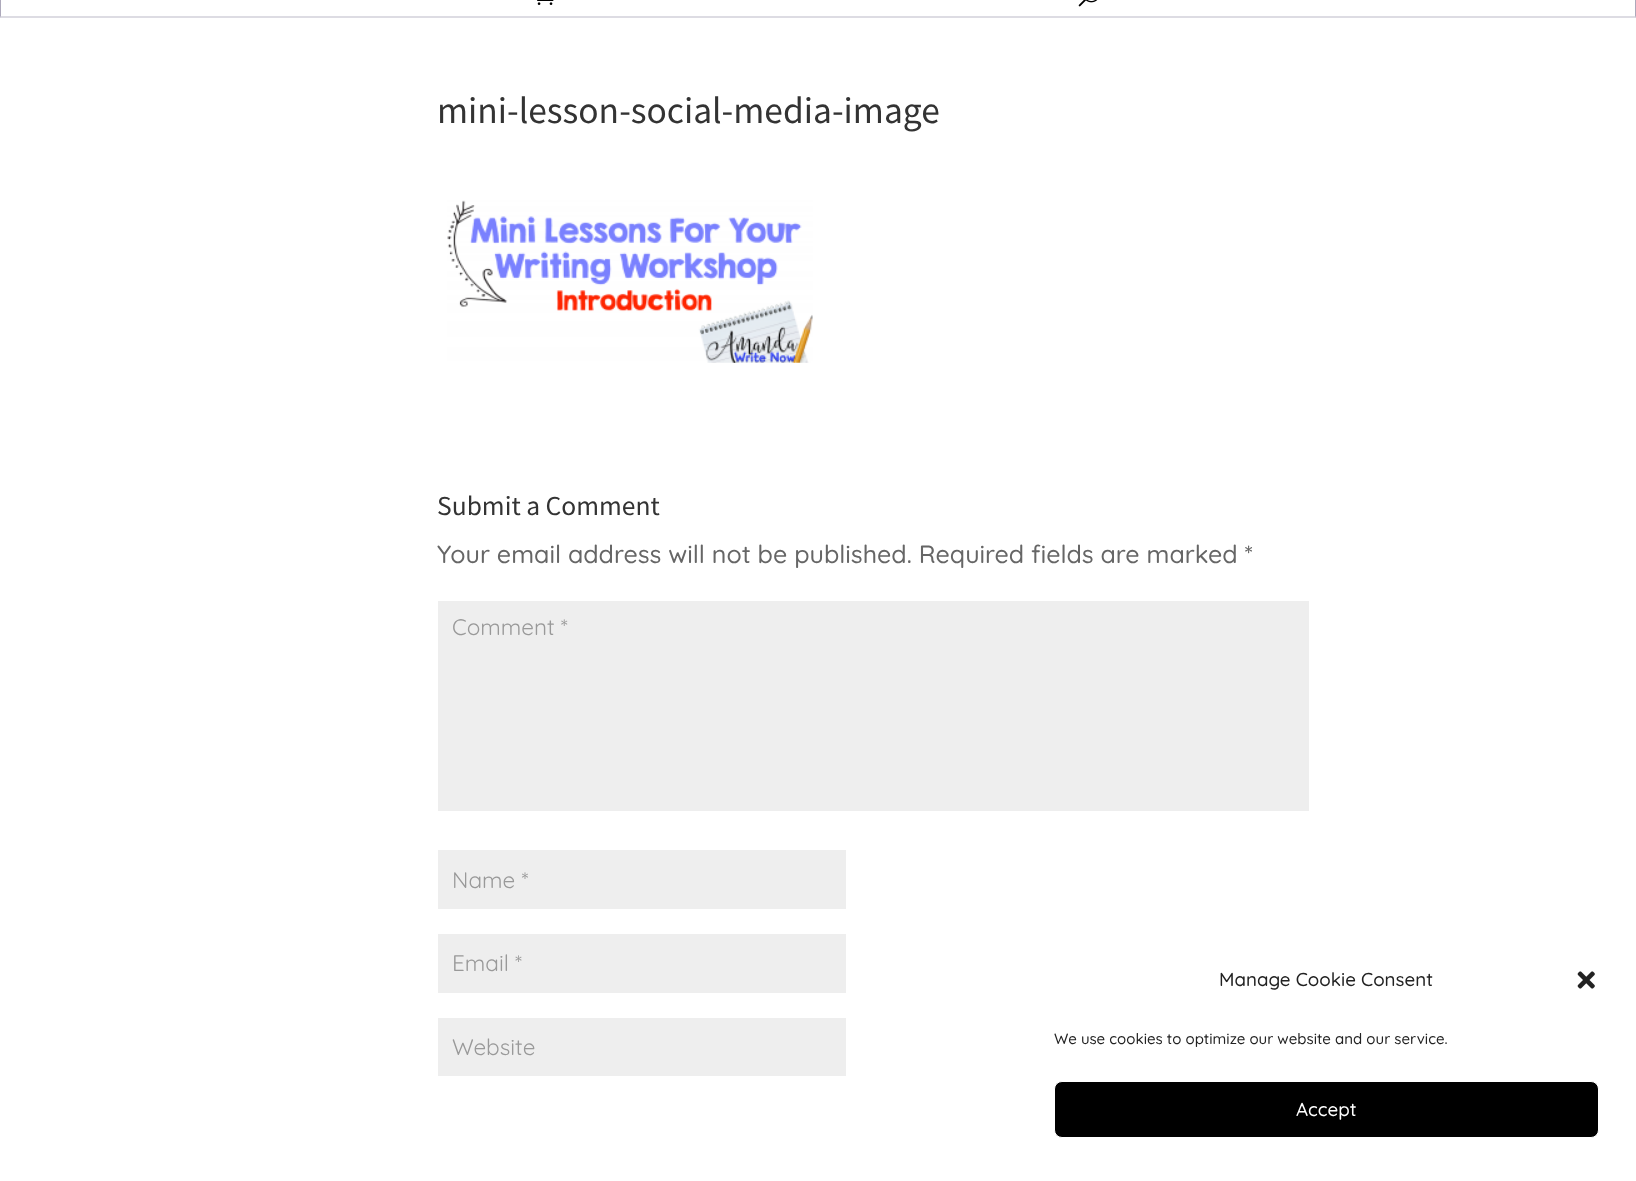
<svg xmlns="http://www.w3.org/2000/svg" width="1636" height="1181">
	<rect width="100%" height="100%" fill="#FFFFFF" />
	<path d="M1636-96V18L1635 16V-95Z" fill="#ADA9BB" />
	<path d="M1636 18H0L1 16H1635Z" fill="#ADA9BB" fill-opacity="0.41" />
	<path d="M0 18V-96L1-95V16Z" fill="#ADA9BB" />
	<image x="537" y="0" width="17" height="5" href="assets/img1.png" />
	<image x="1078" y="0" width="20" height="7" href="assets/img2.png" />
	<text x="437" y="123" font-family="Source Sans Pro" font-size="37.5" fill="#333333">mini-lesson-social-media-image</text>
	<image x="447" y="200" width="366" height="163" href="assets/img3.png" />
	<text x="437" y="515" font-family="Source Sans Pro" font-size="27.5" fill="#333333">Submit a Comment</text>
	<text x="437" y="563" font-family="Quicksand" font-size="25" font-weight="300" fill="#666666">Your email address will not be published. Required fields are marked *</text>
	<rect x="438" y="601" width="871" height="210" fill="#EEEEEE" />
	<text x="452" y="635" font-family="'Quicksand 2'" font-size="22.5" font-weight="300" fill="#999999">Comment *</text>
	<rect x="438" y="850" width="408" height="59" fill="#EEEEEE" />
	<text x="452" y="888" font-family="'Quicksand 2'" font-size="22.5" font-weight="300" fill="#999999">Name *</text>
	<rect x="438" y="934" width="408" height="59" fill="#EEEEEE" />
	<text x="452" y="971" font-family="'Quicksand 2'" font-size="22.5" font-weight="300" fill="#999999">Email *</text>
	<rect x="438" y="1018" width="408" height="58" fill="#EEEEEE" />
	<text x="452" y="1055" font-family="'Quicksand 2'" font-size="22.5" font-weight="300" fill="#999999">Website</text>
	<text x="1219" y="986" font-family="Quicksand" font-size="18.75" font-weight="300" fill="#222222">Manage Cookie Consent</text>
	<image x="1577" y="971" width="18" height="18" href="assets/img4.png" />
	<text x="1054" y="1044" font-family="Quicksand" font-size="15" font-weight="300" fill="#222222">We use cookies to optimize our website and our service.</text>
	<rect x="1054.5" y="1081.5" width="544" height="56" rx="7.5" fill="#000000" stroke="#FFFFFF" />
	<text x="1296" y="1116" font-family="Quicksand" font-size="18.75" font-weight="300" fill="#FFFFFF">Accept</text>
</svg>
